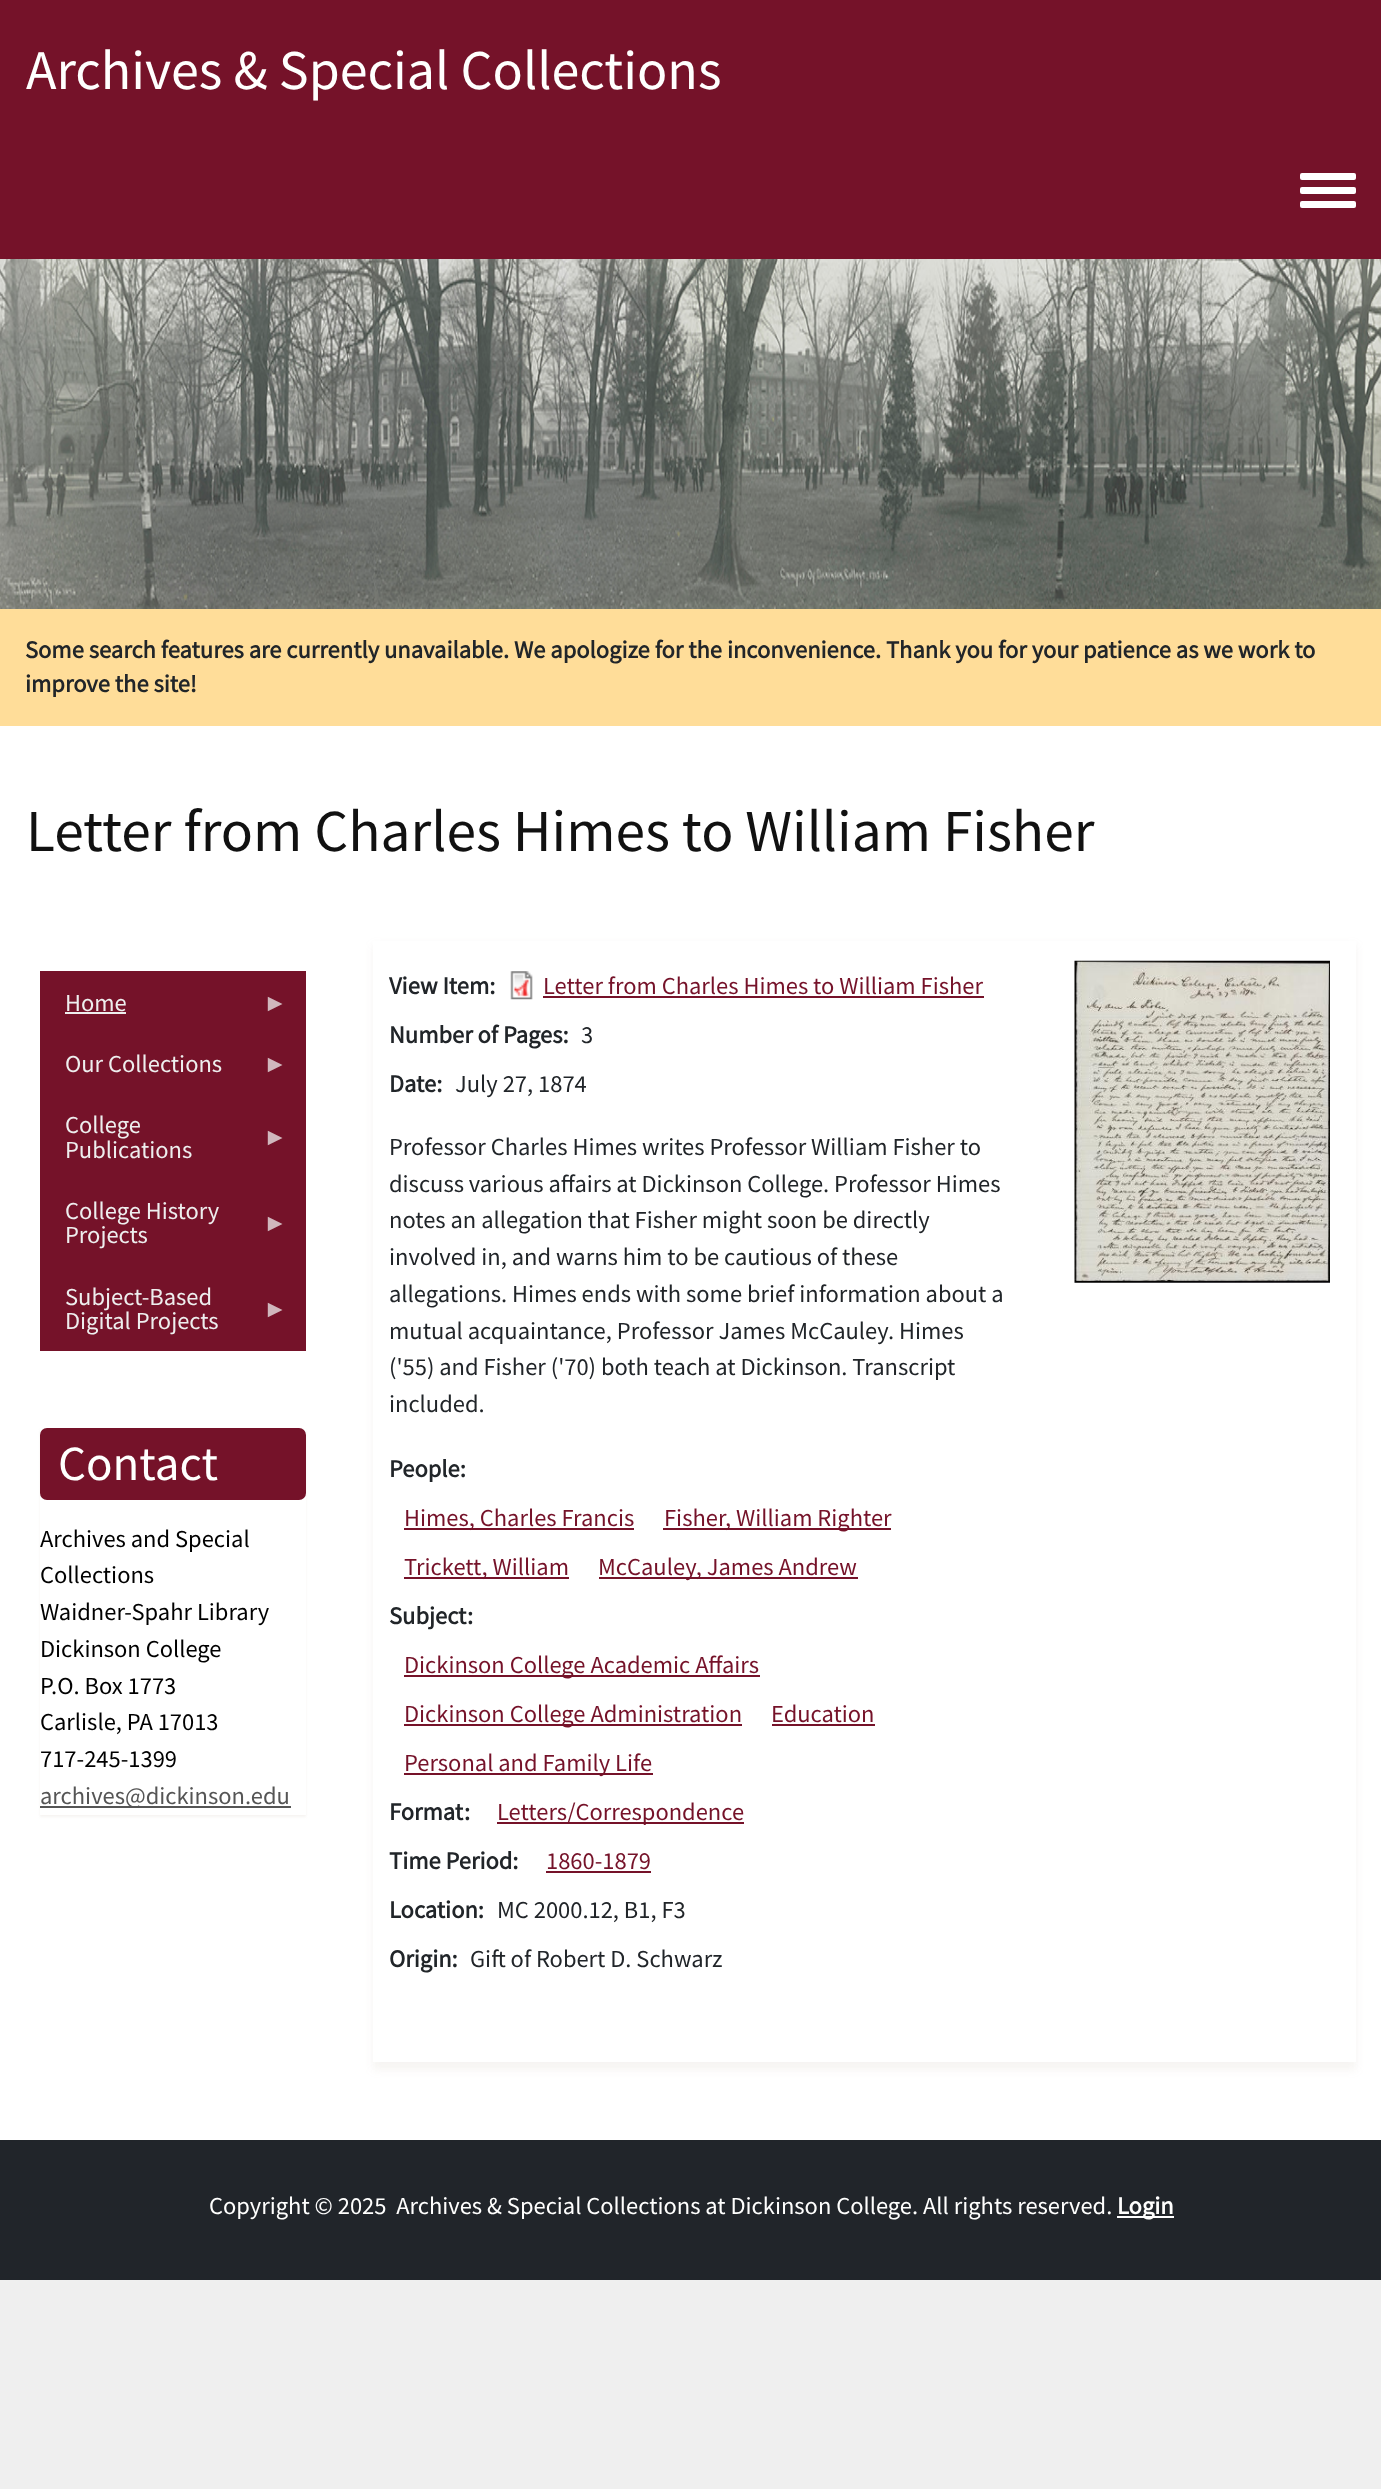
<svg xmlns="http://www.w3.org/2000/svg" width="1381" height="2489">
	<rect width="100%" height="100%" fill="#EFEFEF" />
	<rect x="0" y="726" width="1381" height="1414" fill="#FFFFFF" />
	<rect x="0" y="0" width="1381" height="259" fill="#751229" />
	<text x="26" y="89" font-family="Source Sans Pro" font-size="56" fill="#FFFFFE">Archives &amp; Special Collections</text>
	<rect x="1300" y="187" width="56" height="7" rx="2" fill="#FFFFFF" />
	<rect x="1300" y="173" width="56" height="7" rx="2" fill="#FFFFFF" />
	<rect x="1300" y="201" width="56" height="7" rx="2" fill="#FFFFFF" />
	<image x="0" y="259" width="1381" height="350" href="assets/img1.png" />
	<rect x="0" y="609" width="1381" height="117" fill="#FFDD99" />
	<g font-family="Source Sans Pro" font-size="24.5" font-weight="700" fill="#212529">
		<text x="25" y="658">Some search features are currently unavailable. We apologize for the inconvenience. Thank you for your patience as we work to</text>
		<text x="25" y="692">improve the site!</text>
	</g>
	<text x="26" y="851" font-family="Source Sans Pro" font-size="59.5" fill="#111111">Letter from Charles Himes to William Fisher</text>
	<rect x="40" y="971" width="266" height="380" fill="#751229" />
	<text x="65" y="1011" font-family="Source Sans Pro" font-size="24.5" fill="#EEEEEE">Home</text>
	<rect x="65" y="1012" width="61" height="2" fill="#EEEEEE" />
	<text x="263" y="1011" font-family="Liberation Serif" font-size="24.5" fill="#D0B7BD">►</text>
	<text x="65" y="1072" font-family="Source Sans Pro" font-size="24.5" fill="#EEEEEE">Our Collections</text>
	<text x="263" y="1072" font-family="Liberation Serif" font-size="24.5" fill="#D0B7BD">►</text>
	<text x="65" y="1133" font-family="Source Sans Pro" font-size="24.5" fill="#EEEEEE">College</text>
	<text x="263" y="1145" font-family="Liberation Serif" font-size="24.5" fill="#D0B7BD">►</text>
	<g font-family="Source Sans Pro" font-size="24.5" fill="#EEEEEE">
		<text x="65" y="1158">Publications</text>
		<text x="65" y="1219">College History</text>
	</g>
	<text x="263" y="1231" font-family="Liberation Serif" font-size="24.5" fill="#D0B7BD">►</text>
	<g font-family="Source Sans Pro" font-size="24.5" fill="#EEEEEE">
		<text x="65" y="1243">Projects</text>
		<text x="65" y="1305">Subject-Based</text>
	</g>
	<text x="263" y="1317" font-family="Liberation Serif" font-size="24.5" fill="#D0B7BD">►</text>
	<text x="65" y="1329" font-family="Source Sans Pro" font-size="24.5" fill="#EEEEEE">Digital Projects</text>
	<rect x="40" y="1430" width="266" height="387" fill="#A6977C" fill-opacity="0.1" filter="blur(1px)" />
	<rect x="40" y="1429" width="266" height="386" fill="#FFFFFF" />
	<rect x="40" y="1428" width="266" height="72" rx="7" fill="#751229" />
	<text x="58" y="1480" font-family="Source Sans Pro" font-size="49" fill="#FFFFFE">Contact</text>
	<g font-family="Source Sans Pro" font-size="24.5" fill="#000000">
		<text x="40" y="1547">Archives and Special</text>
		<text x="40" y="1583">Collections</text>
		<text x="40" y="1620">Waidner-Spahr Library</text>
		<text x="40" y="1657">Dickinson College</text>
		<text x="40" y="1694">P.O. Box 1773</text>
		<text x="40" y="1730">Carlisle, PA 17013</text>
		<text x="40" y="1767">717-245-1399</text>
	</g>
	<rect x="40" y="1806" width="251" height="2" fill="#555555" />
	<text x="40" y="1804" font-family="Source Sans Pro" font-size="24.5" fill="#555555">archives@dickinson.edu</text>
	<rect x="373" y="945" width="983" height="1125" fill="#A6977C" fill-opacity="0.1" filter="blur(4.5px)" />
	<rect x="373" y="941" width="983" height="1121" fill="#FFFFFF" />
	<text x="389" y="994" font-family="Source Sans Pro" font-size="24.5" font-weight="700" fill="#212529">View Item:</text>
	<image x="510" y="971" width="23" height="29" href="assets/img2.png" />
	<text x="543" y="994" font-family="Source Sans Pro" font-size="24.5" fill="#751229">Letter from Charles Himes to William Fisher</text>
	<rect x="543" y="996" width="441" height="2" fill="#751229" />
	<text x="389" y="1043" font-family="Source Sans Pro" font-size="24.5" font-weight="700" fill="#212529">Number of Pages:</text>
	<text x="581" y="1043" font-family="Source Sans Pro" font-size="24.5" fill="#212529">3</text>
	<text x="389" y="1092" font-family="Source Sans Pro" font-size="24.5" font-weight="700" fill="#212529">Date:</text>
	<g font-family="Source Sans Pro" font-size="24.5" fill="#212529">
		<text x="455" y="1092">July 27, 1874</text>
		<text x="389" y="1155">Professor Charles Himes writes Professor William Fisher to</text>
		<text x="389" y="1192">discuss various affairs at Dickinson College. Professor Himes</text>
		<text x="389" y="1228">notes an allegation that Fisher might soon be directly</text>
		<text x="389" y="1265">involved in, and warns him to be cautious of these</text>
		<text x="389" y="1302">allegations. Himes ends with some brief information about a</text>
		<text x="389" y="1339">mutual acquaintance, Professor James McCauley. Himes</text>
		<text x="389" y="1375">('55) and Fisher ('70) both teach at Dickinson. Transcript</text>
		<text x="389" y="1412">included.</text>
	</g>
	<text x="389" y="1477" font-family="Source Sans Pro" font-size="24.5" font-weight="700" fill="#212529">People:</text>
	<rect x="404" y="1528" width="230" height="2" fill="#751229" />
	<text x="404" y="1526" font-family="Source Sans Pro" font-size="24.5" fill="#751229">Himes, Charles Francis</text>
	<rect x="663" y="1528" width="228" height="2" fill="#751229" />
	<text x="664" y="1526" font-family="Source Sans Pro" font-size="24.5" fill="#751229">Fisher, William Righter</text>
	<rect x="404" y="1577" width="165" height="2" fill="#751229" />
	<text x="404" y="1575" font-family="Source Sans Pro" font-size="24.5" fill="#751229">Trickett, William</text>
	<rect x="599" y="1577" width="259" height="2" fill="#751229" />
	<text x="598" y="1575" font-family="Source Sans Pro" font-size="24.5" fill="#751229">McCauley, James Andrew</text>
	<g font-family="Source Sans Pro" font-size="24.5" font-weight="700" fill="#212529">
		<text x="389" y="1624">Subject</text>
		<text x="467" y="1624">:</text>
	</g>
	<rect x="404" y="1675" width="356" height="2" fill="#751229" />
	<text x="404" y="1673" font-family="Source Sans Pro" font-size="24.5" fill="#751229">Dickinson College Academic Affairs</text>
	<rect x="404" y="1724" width="338" height="2" fill="#751229" />
	<g font-family="Source Sans Pro" font-size="24.5" fill="#751229">
		<text x="404" y="1722">Dickinson College Administration</text>
		<text x="771" y="1722">Education</text>
	</g>
	<rect x="772" y="1724" width="103" height="2" fill="#751229" />
	<rect x="404" y="1773" width="249" height="2" fill="#751229" />
	<text x="404" y="1771" font-family="Source Sans Pro" font-size="24.5" fill="#751229">Personal and Family Life</text>
	<g font-family="Source Sans Pro" font-size="24.5" font-weight="700" fill="#212529">
		<text x="389" y="1820">Format</text>
		<text x="464" y="1820">:</text>
	</g>
	<rect x="497" y="1822" width="247" height="2" fill="#751229" />
	<text x="497" y="1820" font-family="Source Sans Pro" font-size="24.5" fill="#751229">Letters/Correspondence</text>
	<text x="389" y="1869" font-family="Source Sans Pro" font-size="24.5" font-weight="700" fill="#212529">Time Period:</text>
	<text x="546" y="1869" font-family="Source Sans Pro" font-size="24.5" fill="#751229">1860-1879</text>
	<rect x="546" y="1871" width="105" height="2" fill="#751229" />
	<text x="389" y="1918" font-family="Source Sans Pro" font-size="24.5" font-weight="700" fill="#212529">Location:</text>
	<text x="497" y="1918" font-family="Source Sans Pro" font-size="24.5" fill="#212529">MC 2000.12, B1, F3</text>
	<text x="389" y="1967" font-family="Source Sans Pro" font-size="24.5" font-weight="700" fill="#212529">Origin:</text>
	<text x="470" y="1967" font-family="Source Sans Pro" font-size="24.5" fill="#212529">Gift of Robert D. Schwarz</text>
	<image x="1074" y="960" width="256" height="323" href="assets/img3.png" />
	<rect x="0" y="2140" width="1381" height="140" fill="#21252A" />
	<text x="209" y="2214" font-family="Source Sans Pro" font-size="24.5" fill="#FFFFFE" xml:space="preserve">Copyright © 2025  Archives &amp; Special Collections at Dickinson College. All rights reserved.</text>
	<rect x="1117" y="2216" width="57" height="2" fill="#FFFFFF" />
	<text x="1117" y="2214" font-family="Source Sans Pro" font-size="24.5" font-weight="700" fill="#FFFFFE">Login</text>
</svg>
